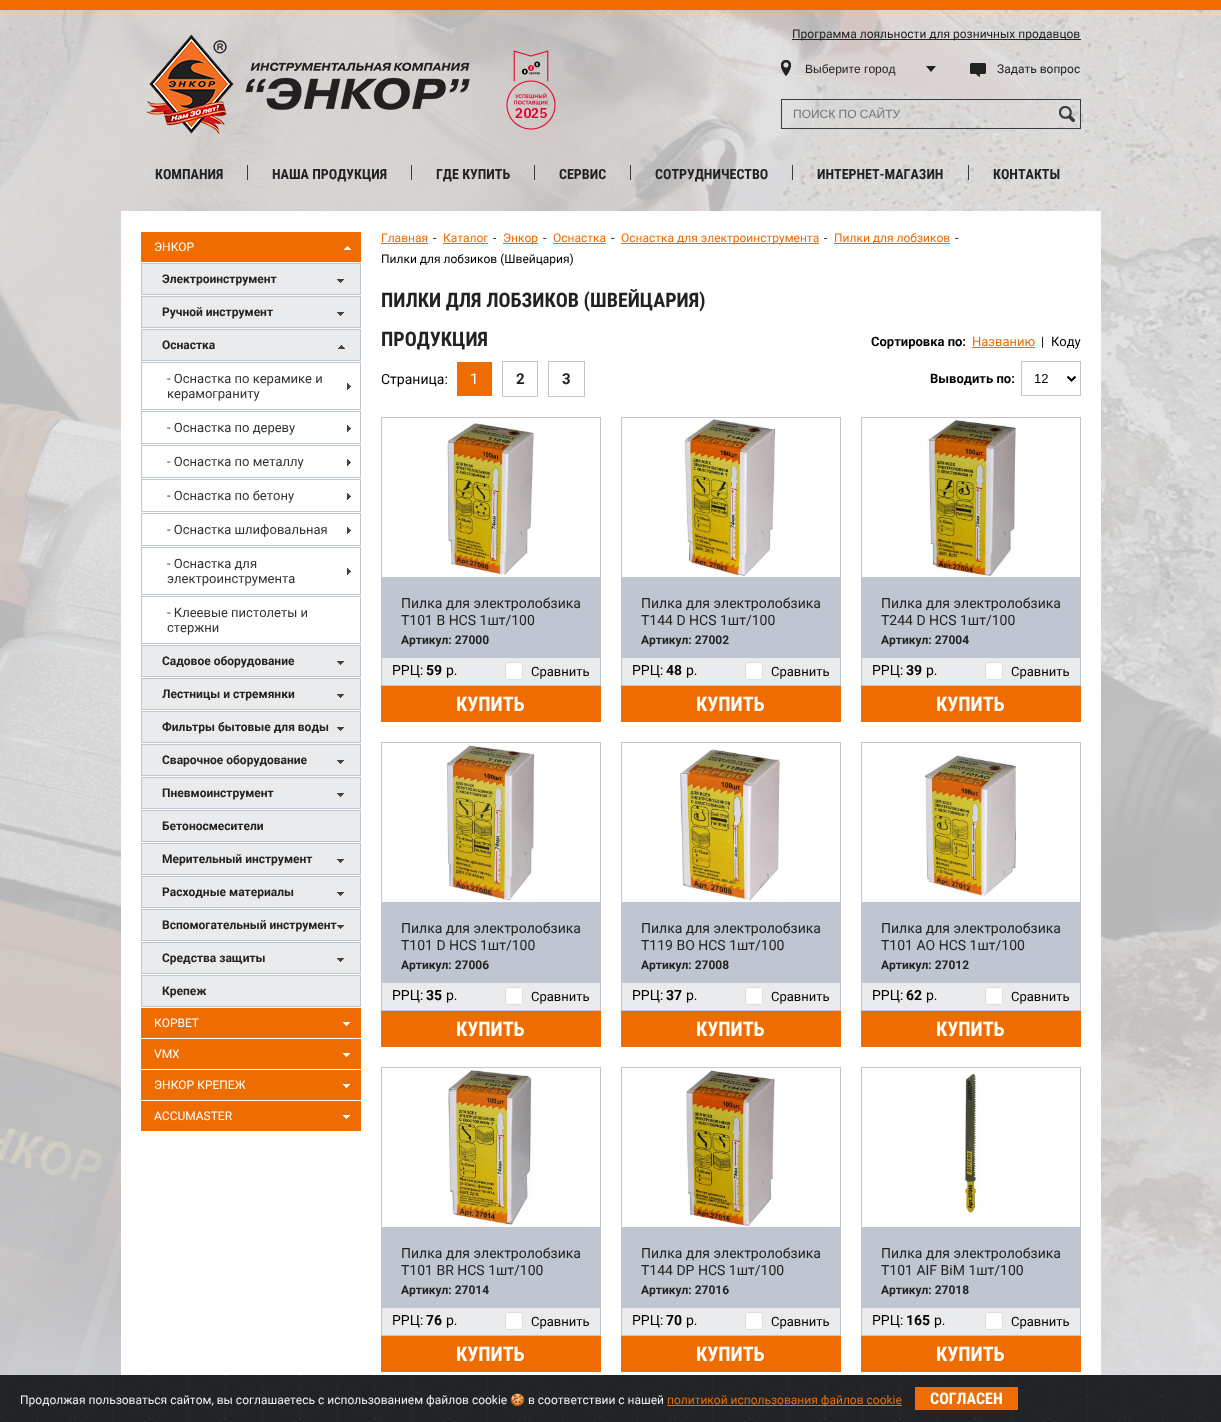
<svg xmlns="http://www.w3.org/2000/svg" width="1221" height="1422">
	<style>*{font-kerning:none!important;font-variant-ligatures:none!important}</style>
	<rect width="100%" height="100%" fill="#FFFFFF" />
	<image x="0" y="10" width="1221" height="1365" href="assets/img1.png" />
	<rect x="0" y="0" width="1221" height="10" fill="#F06C00" />
	<image x="146" y="34" width="324" height="101" href="assets/img2.png" />
	<image x="506" y="50" width="50" height="80" href="assets/img3.png" />
	<rect x="792" y="39" width="289" height="1" fill="#222222" />
	<text x="792" y="38" font-family="Roboto" font-size="12" fill="#222222">Программа лояльности для розничных продавцов</text>
	<image x="781" y="60" width="10" height="16" href="assets/img4.png" />
	<text x="805" y="73" font-family="Liberation Sans" font-size="12" fill="#222222">Выберите город</text>
	<image x="926" y="66" width="10" height="6" href="assets/img5.png" />
	<image x="970" y="63" width="16" height="14" href="assets/img6.png" />
	<text x="997" y="73" font-family="Roboto" font-size="12" fill="#222222">Задать вопрос</text>
	<rect x="781.5" y="99.5" width="299" height="29" fill="none" stroke="#393B40" />
	<text x="793" y="118" font-family="Liberation Sans" font-size="12" fill="#757575">ПОИСК ПО САЙТУ</text>
	<image x="1059" y="106" width="16" height="16" href="assets/img7.png" />
	<text x="155" y="179" font-family="Roboto Condensed" font-size="14" font-weight="700" fill="#222222">КОМПАНИЯ</text>
	<rect x="247" y="165" width="1" height="15" fill="#393B40" />
	<text x="272" y="179" font-family="Roboto Condensed" font-size="14" font-weight="700" fill="#222222">НАША ПРОДУКЦИЯ</text>
	<rect x="411" y="165" width="1" height="15" fill="#393B40" />
	<text x="436" y="179" font-family="Roboto Condensed" font-size="14" font-weight="700" fill="#222222">ГДЕ КУПИТЬ</text>
	<rect x="534" y="165" width="1" height="15" fill="#393B40" />
	<text x="559" y="179" font-family="Roboto Condensed" font-size="14" font-weight="700" fill="#222222">СЕРВИС</text>
	<rect x="630" y="165" width="1" height="15" fill="#393B40" />
	<text x="655" y="179" font-family="Roboto Condensed" font-size="14" font-weight="700" fill="#222222">СОТРУДНИЧЕСТВО</text>
	<rect x="792" y="165" width="1" height="15" fill="#393B40" />
	<text x="817" y="179" font-family="Roboto Condensed" font-size="14" font-weight="700" fill="#222222">ИНТЕРНЕТ-МАГАЗИН</text>
	<rect x="968" y="165" width="1" height="15" fill="#393B40" />
	<text x="993" y="179" font-family="Roboto Condensed" font-size="14" font-weight="700" fill="#222222">КОНТАКТЫ</text>
	<rect x="121" y="211" width="980" height="1164" fill="#FFFFFF" />
	<rect x="141" y="232" width="220" height="30" fill="#EF6C00" />
	<text x="154" y="251" font-family="Roboto" font-size="12" fill="#FFFFFF">ЭНКОР</text>
	<image x="344" y="246" width="7" height="4" href="assets/img8.png" />
	<rect x="141.5" y="263.5" width="219" height="31" fill="#EAEBED" stroke="#BFC5D1" />
	<text x="162" y="283" font-family="Roboto" font-size="12" font-weight="700" fill="#222222">Электроинструмент</text>
	<image x="337" y="279" width="7" height="4" href="assets/img9.png" />
	<rect x="141.5" y="296.5" width="219" height="31" fill="#EAEBED" stroke="#BFC5D1" />
	<text x="162" y="316" font-family="Roboto" font-size="12" font-weight="700" fill="#222222">Ручной инструмент</text>
	<image x="337" y="312" width="7" height="4" href="assets/img9.png" />
	<rect x="141.5" y="329.5" width="219" height="31" fill="#EAEBED" stroke="#BFC5D1" />
	<text x="162" y="349" font-family="Roboto" font-size="12" font-weight="700" fill="#222222">Оснастка</text>
	<image x="338" y="345" width="7" height="4" href="assets/img10.png" />
	<rect x="141.5" y="362.5" width="219" height="47" fill="none" stroke="#BFC5D1" />
	<text x="167" y="383" font-family="Roboto" font-size="13" fill="#333333">- Оснастка по керамике и</text>
	<image x="347" y="383" width="4" height="7" href="assets/img11.png" />
	<text x="167" y="398" font-family="Roboto" font-size="13" fill="#333333">керамограниту</text>
	<rect x="141.5" y="411.5" width="219" height="32" fill="none" stroke="#BFC5D1" />
	<text x="167" y="432" font-family="Roboto" font-size="13" fill="#333333">- Оснастка по дереву</text>
	<image x="347" y="425" width="4" height="7" href="assets/img11.png" />
	<rect x="141.5" y="445.5" width="219" height="32" fill="none" stroke="#BFC5D1" />
	<text x="167" y="466" font-family="Roboto" font-size="13" fill="#333333">- Оснастка по металлу</text>
	<image x="347" y="459" width="4" height="7" href="assets/img11.png" />
	<rect x="141.5" y="479.5" width="219" height="32" fill="none" stroke="#BFC5D1" />
	<text x="167" y="500" font-family="Roboto" font-size="13" fill="#333333">- Оснастка по бетону</text>
	<image x="347" y="493" width="4" height="7" href="assets/img11.png" />
	<rect x="141.5" y="513.5" width="219" height="32" fill="none" stroke="#BFC5D1" />
	<text x="167" y="534" font-family="Roboto" font-size="13" fill="#333333">- Оснастка шлифовальная</text>
	<image x="347" y="527" width="4" height="7" href="assets/img11.png" />
	<rect x="141.5" y="547.5" width="219" height="47" fill="none" stroke="#BFC5D1" />
	<text x="167" y="568" font-family="Roboto" font-size="13" fill="#333333">- Оснастка для</text>
	<image x="347" y="568" width="4" height="7" href="assets/img11.png" />
	<text x="167" y="583" font-family="Roboto" font-size="13" fill="#333333">электроинструмента</text>
	<rect x="141.5" y="596.5" width="219" height="47" fill="none" stroke="#BFC5D1" />
	<g font-family="Roboto" font-size="13" fill="#333333">
		<text x="167" y="617">- Клеевые пистолеты и</text>
		<text x="167" y="632">стержни</text>
	</g>
	<rect x="141.5" y="645.5" width="219" height="31" fill="#EAEBED" stroke="#BFC5D1" />
	<text x="162" y="665" font-family="Roboto" font-size="12" font-weight="700" fill="#222222">Садовое оборудование</text>
	<image x="337" y="661" width="7" height="4" href="assets/img9.png" />
	<rect x="141.5" y="678.5" width="219" height="31" fill="#EAEBED" stroke="#BFC5D1" />
	<text x="162" y="698" font-family="Roboto" font-size="12" font-weight="700" fill="#222222">Лестницы и стремянки</text>
	<image x="337" y="694" width="7" height="4" href="assets/img9.png" />
	<rect x="141.5" y="711.5" width="219" height="31" fill="#EAEBED" stroke="#BFC5D1" />
	<text x="162" y="731" font-family="Roboto" font-size="12" font-weight="700" fill="#222222">Фильтры бытовые для воды</text>
	<image x="337" y="727" width="7" height="4" href="assets/img9.png" />
	<rect x="141.5" y="744.5" width="219" height="31" fill="#EAEBED" stroke="#BFC5D1" />
	<text x="162" y="764" font-family="Roboto" font-size="12" font-weight="700" fill="#222222">Сварочное оборудование</text>
	<image x="337" y="760" width="7" height="4" href="assets/img9.png" />
	<rect x="141.5" y="777.5" width="219" height="31" fill="#EAEBED" stroke="#BFC5D1" />
	<text x="162" y="797" font-family="Roboto" font-size="12" font-weight="700" fill="#222222">Пневмоинструмент</text>
	<image x="337" y="793" width="7" height="4" href="assets/img9.png" />
	<rect x="141.5" y="810.5" width="219" height="31" fill="#EAEBED" stroke="#BFC5D1" />
	<text x="162" y="830" font-family="Roboto" font-size="12" font-weight="700" fill="#222222">Бетоносмесители</text>
	<rect x="141.5" y="843.5" width="219" height="31" fill="#EAEBED" stroke="#BFC5D1" />
	<text x="162" y="863" font-family="Roboto" font-size="12" font-weight="700" fill="#222222">Мерительный инструмент</text>
	<image x="337" y="859" width="7" height="4" href="assets/img9.png" />
	<rect x="141.5" y="876.5" width="219" height="31" fill="#EAEBED" stroke="#BFC5D1" />
	<text x="162" y="896" font-family="Roboto" font-size="12" font-weight="700" fill="#222222">Расходные материалы</text>
	<image x="337" y="892" width="7" height="4" href="assets/img9.png" />
	<rect x="141.5" y="909.5" width="219" height="31" fill="#EAEBED" stroke="#BFC5D1" />
	<text x="162" y="929" font-family="Roboto" font-size="12" font-weight="700" fill="#222222">Вспомогательный инструмент</text>
	<image x="337" y="925" width="7" height="4" href="assets/img9.png" />
	<rect x="141.5" y="942.5" width="219" height="31" fill="#EAEBED" stroke="#BFC5D1" />
	<text x="162" y="962" font-family="Roboto" font-size="12" font-weight="700" fill="#222222">Средства защиты</text>
	<image x="337" y="958" width="7" height="4" href="assets/img9.png" />
	<rect x="141.5" y="975.5" width="219" height="31" fill="#EAEBED" stroke="#BFC5D1" />
	<text x="162" y="995" font-family="Roboto" font-size="12" font-weight="700" fill="#222222">Крепеж</text>
	<rect x="141" y="1008" width="220" height="30" fill="#EF6C00" />
	<text x="154" y="1027" font-family="Roboto" font-size="12" fill="#FFFFFF">КОРВЕТ</text>
	<image x="343" y="1022" width="7" height="4" href="assets/img12.png" />
	<rect x="141" y="1039" width="220" height="30" fill="#EF6C00" />
	<text x="154" y="1058" font-family="Roboto" font-size="12" fill="#FFFFFF">VMX</text>
	<image x="343" y="1053" width="7" height="4" href="assets/img12.png" />
	<rect x="141" y="1070" width="220" height="30" fill="#EF6C00" />
	<text x="154" y="1089" font-family="Roboto" font-size="12" fill="#FFFFFF">ЭНКОР КРЕПЕЖ</text>
	<image x="343" y="1084" width="7" height="4" href="assets/img12.png" />
	<rect x="141" y="1101" width="220" height="30" fill="#EF6C00" />
	<text x="154" y="1120" font-family="Roboto" font-size="12" fill="#FFFFFF">ACCUMASTER</text>
	<image x="343" y="1115" width="7" height="4" href="assets/img12.png" />
	<text x="381" y="242" font-family="Roboto" font-size="12" fill="#EF6C00">Главная</text>
	<rect x="381" y="243" width="47" height="1" fill="#EF6C00" />
	<text x="433" y="242" font-family="Roboto" font-size="12" fill="#000000">-</text>
	<text x="443" y="242" font-family="Roboto" font-size="12" fill="#EF6C00">Каталог</text>
	<rect x="443" y="243" width="45" height="1" fill="#EF6C00" />
	<text x="493" y="242" font-family="Roboto" font-size="12" fill="#000000">-</text>
	<rect x="503" y="243" width="35" height="1" fill="#EF6C00" />
	<text x="503" y="242" font-family="Roboto" font-size="12" fill="#EF6C00">Энкор</text>
	<text x="543" y="242" font-family="Roboto" font-size="12" fill="#000000">-</text>
	<text x="553" y="242" font-family="Roboto" font-size="12" fill="#EF6C00">Оснастка</text>
	<rect x="553" y="243" width="53" height="1" fill="#EF6C00" />
	<text x="611" y="242" font-family="Roboto" font-size="12" fill="#000000">-</text>
	<rect x="621" y="243" width="198" height="1" fill="#EF6C00" />
	<text x="621" y="242" font-family="Roboto" font-size="12" fill="#EF6C00">Оснастка для электроинструмента</text>
	<text x="824" y="242" font-family="Roboto" font-size="12" fill="#000000">-</text>
	<rect x="834" y="243" width="116" height="1" fill="#EF6C00" />
	<text x="834" y="242" font-family="Roboto" font-size="12" fill="#EF6C00">Пилки для лобзиков</text>
	<g font-family="Roboto" font-size="12" fill="#000000">
		<text x="955" y="242">-</text>
		<text x="381" y="263">Пилки для лобзиков (Швейцария)</text>
	</g>
	<g font-family="Roboto Condensed" font-size="20" font-weight="700" fill="#222222">
		<text x="381" y="307">ПИЛКИ ДЛЯ ЛОБЗИКОВ (ШВЕЙЦАРИЯ)</text>
		<text x="381" y="346">ПРОДУКЦИЯ</text>
	</g>
	<text x="871" y="346" font-family="Roboto" font-size="13" font-weight="700" fill="#000000">Сортировка по:</text>
	<text x="972" y="346" font-family="Roboto" font-size="13" fill="#EF6C00">Названию</text>
	<rect x="972" y="347" width="63" height="1" fill="#EF6C00" />
	<g font-family="Roboto" font-size="13" fill="#000000">
		<text x="1041" y="346">|</text>
		<text x="1051" y="346">Коду</text>
	</g>
	<text x="381" y="384" font-family="Roboto" font-size="14" fill="#000000">Страница:</text>
	<rect x="457" y="362" width="35" height="34" fill="#EF6C00" />
	<text x="470" y="384" font-family="Roboto" font-size="15" fill="#FFFFFF">1</text>
	<rect x="502.5" y="361.5" width="35" height="35" fill="none" stroke="#BFC5D1" />
	<text x="516" y="384" font-family="Roboto" font-size="15" font-weight="700" fill="#222222">2</text>
	<rect x="548.5" y="361.5" width="36" height="35" fill="none" stroke="#BFC5D1" />
	<text x="562" y="384" font-family="Roboto" font-size="15" font-weight="700" fill="#222222">3</text>
	<text x="930" y="383" font-family="Roboto" font-size="13" font-weight="700" fill="#000000">Выводить по:</text>
	<rect x="1021.5" y="361.5" width="59" height="34" fill="none" stroke="#BFC5D1" />
	<path d="M1067.5 376.5L1071.5 380.5L1075.5 376.5" fill="none" stroke="#000000" stroke-width="2" />
	<text x="1034" y="383" font-family="Liberation Sans" font-size="13" fill="#000000">12</text>
	<image x="447" y="423" width="87" height="153" href="assets/img13.png" />
	<rect x="381.5" y="417.5" width="219" height="160" fill="none" stroke="#BFC5D1" />
	<rect x="381" y="578" width="220" height="80" fill="#BFC5D1" />
	<g font-family="Roboto" font-size="14" fill="#222222">
		<text x="401" y="608">Пилка для электролобзика</text>
		<text x="401" y="625">T101 B HCS 1шт/100</text>
	</g>
	<text x="401" y="644" font-family="Roboto" font-size="12" font-weight="700" fill="#222222">Артикул: 27000</text>
	<rect x="382" y="658" width="218" height="27" fill="#EAEBED" />
	<rect x="600" y="658" width="1" height="28" fill="#BFC5D1" />
	<rect x="381" y="685" width="220" height="1" fill="#BFC5D1" />
	<rect x="381" y="658" width="1" height="28" fill="#BFC5D1" />
	<text x="392" y="675" font-family="Roboto" font-size="14" fill="#000000">РРЦ:</text>
	<text x="426" y="675" font-family="Roboto" font-size="14" font-weight="700" fill="#000000">59</text>
	<text x="446" y="675" font-family="Roboto" font-size="14" fill="#000000">р.</text>
	<image x="505" y="662" width="18" height="18" href="assets/img14.png" />
	<text x="531" y="676" font-family="Roboto" font-size="13" fill="#000000">Сравнить</text>
	<rect x="381" y="686" width="220" height="36" fill="#EF6C00" />
	<text x="456" y="711" font-family="Roboto Condensed" font-size="20" font-weight="700" fill="#FFFFFF">КУПИТЬ</text>
	<image x="684" y="419" width="92" height="158" href="assets/img15.png" />
	<rect x="621.5" y="417.5" width="219" height="160" fill="none" stroke="#BFC5D1" />
	<rect x="621" y="578" width="220" height="80" fill="#BFC5D1" />
	<g font-family="Roboto" font-size="14" fill="#222222">
		<text x="641" y="608">Пилка для электролобзика</text>
		<text x="641" y="625">T144 D HCS 1шт/100</text>
	</g>
	<text x="641" y="644" font-family="Roboto" font-size="12" font-weight="700" fill="#222222">Артикул: 27002</text>
	<rect x="622" y="658" width="218" height="27" fill="#EAEBED" />
	<rect x="840" y="658" width="1" height="28" fill="#BFC5D1" />
	<rect x="621" y="685" width="220" height="1" fill="#BFC5D1" />
	<rect x="621" y="658" width="1" height="28" fill="#BFC5D1" />
	<text x="632" y="675" font-family="Roboto" font-size="14" fill="#000000">РРЦ:</text>
	<text x="666" y="675" font-family="Roboto" font-size="14" font-weight="700" fill="#000000">48</text>
	<text x="686" y="675" font-family="Roboto" font-size="14" fill="#000000">р.</text>
	<image x="745" y="662" width="18" height="18" href="assets/img14.png" />
	<text x="771" y="676" font-family="Roboto" font-size="13" fill="#000000">Сравнить</text>
	<rect x="621" y="686" width="220" height="36" fill="#EF6C00" />
	<text x="696" y="711" font-family="Roboto Condensed" font-size="20" font-weight="700" fill="#FFFFFF">КУПИТЬ</text>
	<image x="927" y="420" width="89" height="157" href="assets/img16.png" />
	<rect x="861.5" y="417.5" width="219" height="160" fill="none" stroke="#BFC5D1" />
	<rect x="861" y="578" width="220" height="80" fill="#BFC5D1" />
	<g font-family="Roboto" font-size="14" fill="#222222">
		<text x="881" y="608">Пилка для электролобзика</text>
		<text x="881" y="625">T244 D HCS 1шт/100</text>
	</g>
	<text x="881" y="644" font-family="Roboto" font-size="12" font-weight="700" fill="#222222">Артикул: 27004</text>
	<rect x="862" y="658" width="218" height="27" fill="#EAEBED" />
	<rect x="1080" y="658" width="1" height="28" fill="#BFC5D1" />
	<rect x="861" y="685" width="220" height="1" fill="#BFC5D1" />
	<rect x="861" y="658" width="1" height="28" fill="#BFC5D1" />
	<text x="872" y="675" font-family="Roboto" font-size="14" fill="#000000">РРЦ:</text>
	<text x="906" y="675" font-family="Roboto" font-size="14" font-weight="700" fill="#000000">39</text>
	<text x="926" y="675" font-family="Roboto" font-size="14" fill="#000000">р.</text>
	<image x="985" y="662" width="18" height="18" href="assets/img14.png" />
	<text x="1011" y="676" font-family="Roboto" font-size="13" fill="#000000">Сравнить</text>
	<rect x="861" y="686" width="220" height="36" fill="#EF6C00" />
	<text x="936" y="711" font-family="Roboto Condensed" font-size="20" font-weight="700" fill="#FFFFFF">КУПИТЬ</text>
	<image x="446" y="745" width="89" height="156" href="assets/img17.png" />
	<rect x="381.5" y="742.5" width="219" height="160" fill="none" stroke="#BFC5D1" />
	<rect x="381" y="903" width="220" height="80" fill="#BFC5D1" />
	<g font-family="Roboto" font-size="14" fill="#222222">
		<text x="401" y="933">Пилка для электролобзика</text>
		<text x="401" y="950">T101 D HCS 1шт/100</text>
	</g>
	<text x="401" y="969" font-family="Roboto" font-size="12" font-weight="700" fill="#222222">Артикул: 27006</text>
	<rect x="382" y="983" width="218" height="27" fill="#EAEBED" />
	<rect x="600" y="983" width="1" height="28" fill="#BFC5D1" />
	<rect x="381" y="1010" width="220" height="1" fill="#BFC5D1" />
	<rect x="381" y="983" width="1" height="28" fill="#BFC5D1" />
	<text x="392" y="1000" font-family="Roboto" font-size="14" fill="#000000">РРЦ:</text>
	<text x="426" y="1000" font-family="Roboto" font-size="14" font-weight="700" fill="#000000">35</text>
	<text x="446" y="1000" font-family="Roboto" font-size="14" fill="#000000">р.</text>
	<image x="505" y="987" width="18" height="18" href="assets/img14.png" />
	<text x="531" y="1001" font-family="Roboto" font-size="13" fill="#000000">Сравнить</text>
	<rect x="381" y="1011" width="220" height="36" fill="#EF6C00" />
	<text x="456" y="1036" font-family="Roboto Condensed" font-size="20" font-weight="700" fill="#FFFFFF">КУПИТЬ</text>
	<image x="680" y="749" width="100" height="152" href="assets/img18.png" />
	<rect x="621.5" y="742.5" width="219" height="160" fill="none" stroke="#BFC5D1" />
	<rect x="621" y="903" width="220" height="80" fill="#BFC5D1" />
	<g font-family="Roboto" font-size="14" fill="#222222">
		<text x="641" y="933">Пилка для электролобзика</text>
		<text x="641" y="950">T119 BO HCS 1шт/100</text>
	</g>
	<text x="641" y="969" font-family="Roboto" font-size="12" font-weight="700" fill="#222222">Артикул: 27008</text>
	<rect x="622" y="983" width="218" height="27" fill="#EAEBED" />
	<rect x="840" y="983" width="1" height="28" fill="#BFC5D1" />
	<rect x="621" y="1010" width="220" height="1" fill="#BFC5D1" />
	<rect x="621" y="983" width="1" height="28" fill="#BFC5D1" />
	<text x="632" y="1000" font-family="Roboto" font-size="14" fill="#000000">РРЦ:</text>
	<text x="666" y="1000" font-family="Roboto" font-size="14" font-weight="700" fill="#000000">37</text>
	<text x="686" y="1000" font-family="Roboto" font-size="14" fill="#000000">р.</text>
	<image x="745" y="987" width="18" height="18" href="assets/img14.png" />
	<text x="771" y="1001" font-family="Roboto" font-size="13" fill="#000000">Сравнить</text>
	<rect x="621" y="1011" width="220" height="36" fill="#EF6C00" />
	<text x="696" y="1036" font-family="Roboto Condensed" font-size="20" font-weight="700" fill="#FFFFFF">КУПИТЬ</text>
	<image x="925" y="755" width="92" height="141" href="assets/img19.png" />
	<rect x="861.5" y="742.5" width="219" height="160" fill="none" stroke="#BFC5D1" />
	<rect x="861" y="903" width="220" height="80" fill="#BFC5D1" />
	<g font-family="Roboto" font-size="14" fill="#222222">
		<text x="881" y="933">Пилка для электролобзика</text>
		<text x="881" y="950">T101 AO HCS 1шт/100</text>
	</g>
	<text x="881" y="969" font-family="Roboto" font-size="12" font-weight="700" fill="#222222">Артикул: 27012</text>
	<rect x="862" y="983" width="218" height="27" fill="#EAEBED" />
	<rect x="1080" y="983" width="1" height="28" fill="#BFC5D1" />
	<rect x="861" y="1010" width="220" height="1" fill="#BFC5D1" />
	<rect x="861" y="983" width="1" height="28" fill="#BFC5D1" />
	<text x="872" y="1000" font-family="Roboto" font-size="14" fill="#000000">РРЦ:</text>
	<text x="906" y="1000" font-family="Roboto" font-size="14" font-weight="700" fill="#000000">62</text>
	<text x="926" y="1000" font-family="Roboto" font-size="14" fill="#000000">р.</text>
	<image x="985" y="987" width="18" height="18" href="assets/img14.png" />
	<text x="1011" y="1001" font-family="Roboto" font-size="13" fill="#000000">Сравнить</text>
	<rect x="861" y="1011" width="220" height="36" fill="#EF6C00" />
	<text x="936" y="1036" font-family="Roboto Condensed" font-size="20" font-weight="700" fill="#FFFFFF">КУПИТЬ</text>
	<image x="447" y="1070" width="86" height="156" href="assets/img20.png" />
	<rect x="381.5" y="1067.5" width="219" height="160" fill="none" stroke="#BFC5D1" />
	<rect x="381" y="1228" width="220" height="80" fill="#BFC5D1" />
	<g font-family="Roboto" font-size="14" fill="#222222">
		<text x="401" y="1258">Пилка для электролобзика</text>
		<text x="401" y="1275">T101 BR HCS 1шт/100</text>
	</g>
	<text x="401" y="1294" font-family="Roboto" font-size="12" font-weight="700" fill="#222222">Артикул: 27014</text>
	<rect x="382" y="1308" width="218" height="27" fill="#EAEBED" />
	<rect x="600" y="1308" width="1" height="28" fill="#BFC5D1" />
	<rect x="381" y="1335" width="220" height="1" fill="#BFC5D1" />
	<rect x="381" y="1308" width="1" height="28" fill="#BFC5D1" />
	<text x="392" y="1325" font-family="Roboto" font-size="14" fill="#000000">РРЦ:</text>
	<text x="426" y="1325" font-family="Roboto" font-size="14" font-weight="700" fill="#000000">76</text>
	<text x="446" y="1325" font-family="Roboto" font-size="14" fill="#000000">р.</text>
	<image x="505" y="1312" width="18" height="18" href="assets/img14.png" />
	<text x="531" y="1326" font-family="Roboto" font-size="13" fill="#000000">Сравнить</text>
	<rect x="381" y="1336" width="220" height="36" fill="#EF6C00" />
	<text x="456" y="1361" font-family="Roboto Condensed" font-size="20" font-weight="700" fill="#FFFFFF">КУПИТЬ</text>
	<image x="686" y="1070" width="89" height="157" href="assets/img21.png" />
	<rect x="621.5" y="1067.5" width="219" height="160" fill="none" stroke="#BFC5D1" />
	<rect x="621" y="1228" width="220" height="80" fill="#BFC5D1" />
	<g font-family="Roboto" font-size="14" fill="#222222">
		<text x="641" y="1258">Пилка для электролобзика</text>
		<text x="641" y="1275">T144 DP HCS 1шт/100</text>
	</g>
	<text x="641" y="1294" font-family="Roboto" font-size="12" font-weight="700" fill="#222222">Артикул: 27016</text>
	<rect x="622" y="1308" width="218" height="27" fill="#EAEBED" />
	<rect x="840" y="1308" width="1" height="28" fill="#BFC5D1" />
	<rect x="621" y="1335" width="220" height="1" fill="#BFC5D1" />
	<rect x="621" y="1308" width="1" height="28" fill="#BFC5D1" />
	<text x="632" y="1325" font-family="Roboto" font-size="14" fill="#000000">РРЦ:</text>
	<text x="666" y="1325" font-family="Roboto" font-size="14" font-weight="700" fill="#000000">70</text>
	<text x="686" y="1325" font-family="Roboto" font-size="14" fill="#000000">р.</text>
	<image x="745" y="1312" width="18" height="18" href="assets/img14.png" />
	<text x="771" y="1326" font-family="Roboto" font-size="13" fill="#000000">Сравнить</text>
	<rect x="621" y="1336" width="220" height="36" fill="#EF6C00" />
	<text x="696" y="1361" font-family="Roboto Condensed" font-size="20" font-weight="700" fill="#FFFFFF">КУПИТЬ</text>
	<image x="964" y="1073" width="16" height="143" href="assets/img22.png" />
	<rect x="861.5" y="1067.5" width="219" height="160" fill="none" stroke="#BFC5D1" />
	<rect x="861" y="1228" width="220" height="80" fill="#BFC5D1" />
	<g font-family="Roboto" font-size="14" fill="#222222">
		<text x="881" y="1258">Пилка для электролобзика</text>
		<text x="881" y="1275">T101 AIF BiM 1шт/100</text>
	</g>
	<text x="881" y="1294" font-family="Roboto" font-size="12" font-weight="700" fill="#222222">Артикул: 27018</text>
	<rect x="862" y="1308" width="218" height="27" fill="#EAEBED" />
	<rect x="1080" y="1308" width="1" height="28" fill="#BFC5D1" />
	<rect x="861" y="1335" width="220" height="1" fill="#BFC5D1" />
	<rect x="861" y="1308" width="1" height="28" fill="#BFC5D1" />
	<text x="872" y="1325" font-family="Roboto" font-size="14" fill="#000000">РРЦ:</text>
	<text x="906" y="1325" font-family="Roboto" font-size="14" font-weight="700" fill="#000000">165</text>
	<text x="934" y="1325" font-family="Roboto" font-size="14" fill="#000000">р.</text>
	<image x="985" y="1312" width="18" height="18" href="assets/img14.png" />
	<text x="1011" y="1326" font-family="Roboto" font-size="13" fill="#000000">Сравнить</text>
	<rect x="861" y="1336" width="220" height="36" fill="#EF6C00" />
	<text x="936" y="1361" font-family="Roboto Condensed" font-size="20" font-weight="700" fill="#FFFFFF">КУПИТЬ</text>
	<rect x="1220" y="1375" width="1" height="47" fill="#212327" />
	<image x="0" y="1375" width="1220" height="47" href="assets/img23.png" />
	<text x="20" y="1404" font-family="Roboto" font-size="12" fill="#ECF0F1">Продолжая пользоваться сайтом, вы соглашаетесь с использованием файлов cookie</text>
	<text x="510" y="1404" font-family="Noto Color Emoji" font-size="12" fill="#ECF0F1">🍪</text>
	<text x="528" y="1404" font-family="Roboto" font-size="12" fill="#ECF0F1">в соответствии с нашей</text>
	<rect x="667" y="1405" width="235" height="1" fill="#EF6C00" />
	<text x="667" y="1404" font-family="Roboto" font-size="12" fill="#EF6C00">политикой использования файлов cookie</text>
	<rect x="915" y="1387" width="103" height="23" fill="#EF6C00" />
	<text x="930" y="1404" font-family="Roboto Condensed" font-size="16" font-weight="700" fill="#FFFFFF">СОГЛАСЕН</text>
</svg>
